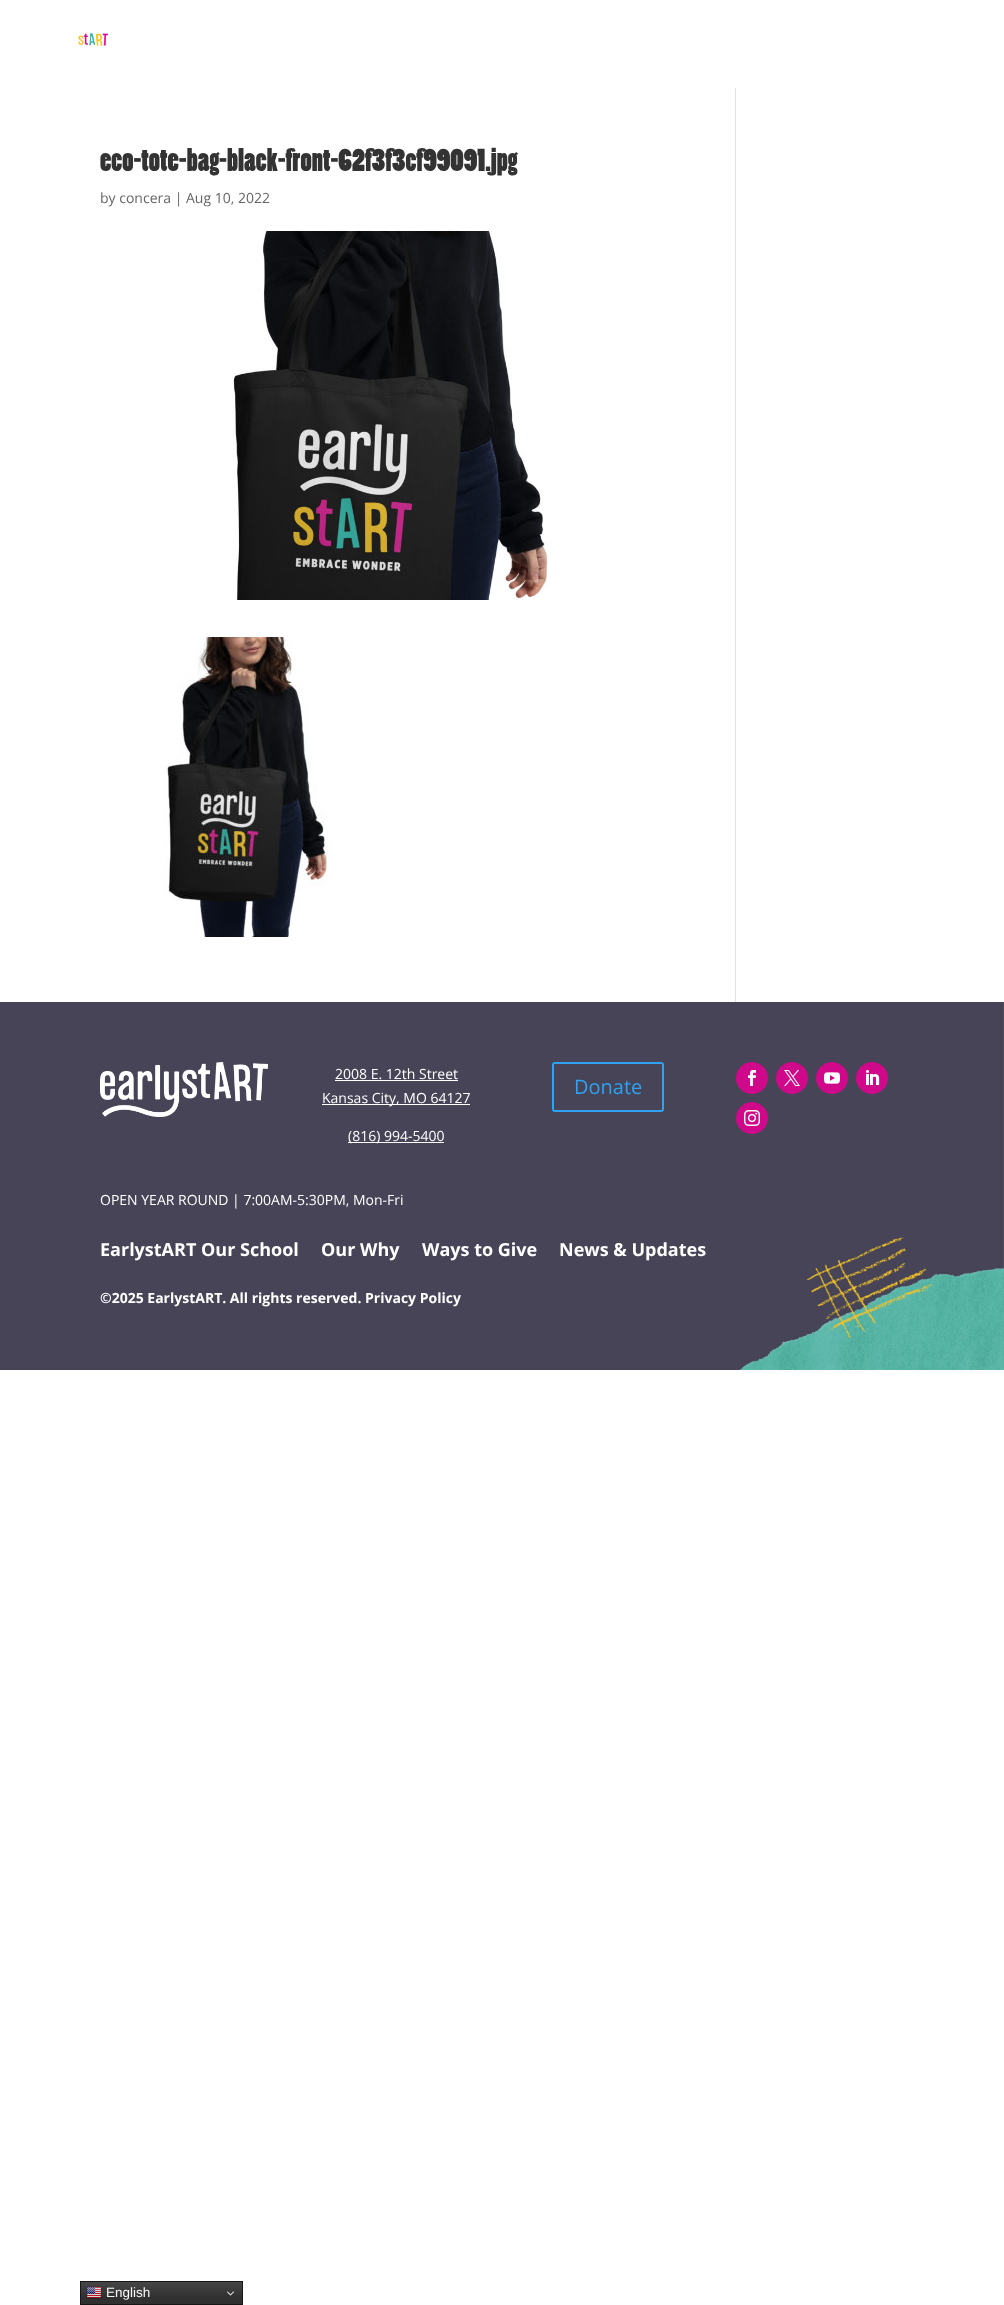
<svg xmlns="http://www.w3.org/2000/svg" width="1004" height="2305">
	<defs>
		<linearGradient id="g1" gradientUnits="userSpaceOnUse" x1="162" y1="2281" x2="162" y2="2305"><stop offset="0" stop-color="#474747" /><stop offset="0.7" stop-color="#303030" /></linearGradient>
	</defs>
	<rect width="100%" height="100%" fill="#FFFFFF" />
	<image x="78" y="33" width="30" height="13" href="assets/img1.png" />
	<text x="100" y="171" font-family="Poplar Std" font-size="30" font-weight="700" fill="#333333">eco-tote-bag-black-front-62f3f3cf99091.jpg</text>
	<text x="100" y="203" font-family="Open Sans" font-size="14" fill="#666666">by concera | Aug 10, 2022</text>
	<image x="232" y="231" width="316" height="369" href="assets/img2.png" />
	<image x="164" y="637" width="168" height="300" href="assets/img3.png" />
	<rect x="735" y="88" width="1" height="914" fill="#E2E2E2" />
	<rect x="0" y="1002" width="739" height="368" fill="#464456" />
	<image x="739" y="1002" width="265" height="368" href="assets/img4.png" />
	<image x="100" y="1062" width="168" height="55" href="assets/img5.png" />
	<text x="335" y="1079" font-family="Open Sans" font-size="14" fill="#FFFFFF">2008 E. 12th Street</text>
	<rect x="335" y="1080" width="123" height="1" fill="#FFFFFF" />
	<rect x="322" y="1104" width="148" height="1" fill="#FFFFFF" />
	<text x="322" y="1103" font-family="Open Sans" font-size="14" fill="#FFFFFF">Kansas City, MO 64127</text>
	<rect x="348" y="1142" width="96" height="1" fill="#FFFFFF" />
	<text x="348" y="1141" font-family="Open Sans" font-size="14" fill="#FFFFFF">(816) 994-5400</text>
	<rect x="553" y="1063" width="110" height="48" rx="2" fill="none" stroke="#2EA3F2" stroke-width="2" />
	<text x="574" y="1094" font-family="Open Sans" font-size="20" fill="#2EA3F2">Donate</text>
	<circle cx="752" cy="1078" r="16" fill="#CF0989" />
	<image x="748" y="1070" width="8" height="16" href="assets/img6.png" />
	<circle cx="792" cy="1078" r="16" fill="#CF0989" />
	<image x="784" y="1070" width="16" height="16" href="assets/img7.png" />
	<circle cx="832" cy="1078" r="16" fill="#CF0989" />
	<image x="824" y="1072" width="16" height="12" href="assets/img8.png" />
	<circle cx="872" cy="1078" r="16" fill="#CF0989" />
	<image x="866" y="1070" width="14" height="15" href="assets/img9.png" />
	<circle cx="752" cy="1118" r="16" fill="#CF0989" />
	<image x="744" y="1110" width="16" height="16" href="assets/img10.png" />
	<text x="100" y="1205" font-family="Open Sans" font-size="14" fill="#FFFFFF">OPEN YEAR ROUND | 7:00AM-5:30PM, Mon-Fri</text>
	<g font-family="Open Sans" font-size="18" font-weight="700" fill="#FFFFFF">
		<text x="100" y="1256">EarlystART Our School</text>
		<text x="321" y="1256">Our Why</text>
		<text x="422" y="1256">Ways to Give</text>
		<text x="559" y="1256">News &amp; Updates</text>
	</g>
	<text x="100" y="1303" font-family="Open Sans" font-size="14" font-weight="700" fill="#FFFFFF">©2025 EarlystART. All rights reserved. Privacy Policy</text>
	<rect x="81" y="2282" width="161" height="22" fill="url(#g1)" />
	<rect x="80.5" y="2281.5" width="162" height="23" fill="none" stroke="#161616" />
	<image x="86" y="2286" width="16" height="13" href="assets/img11.png" />
	<text x="106" y="2297" font-family="Liberation Sans" font-size="13.5" fill="#F7F7F7">English</text>
	<image x="227" y="2291" width="7" height="5" href="assets/img12.png" />
</svg>
